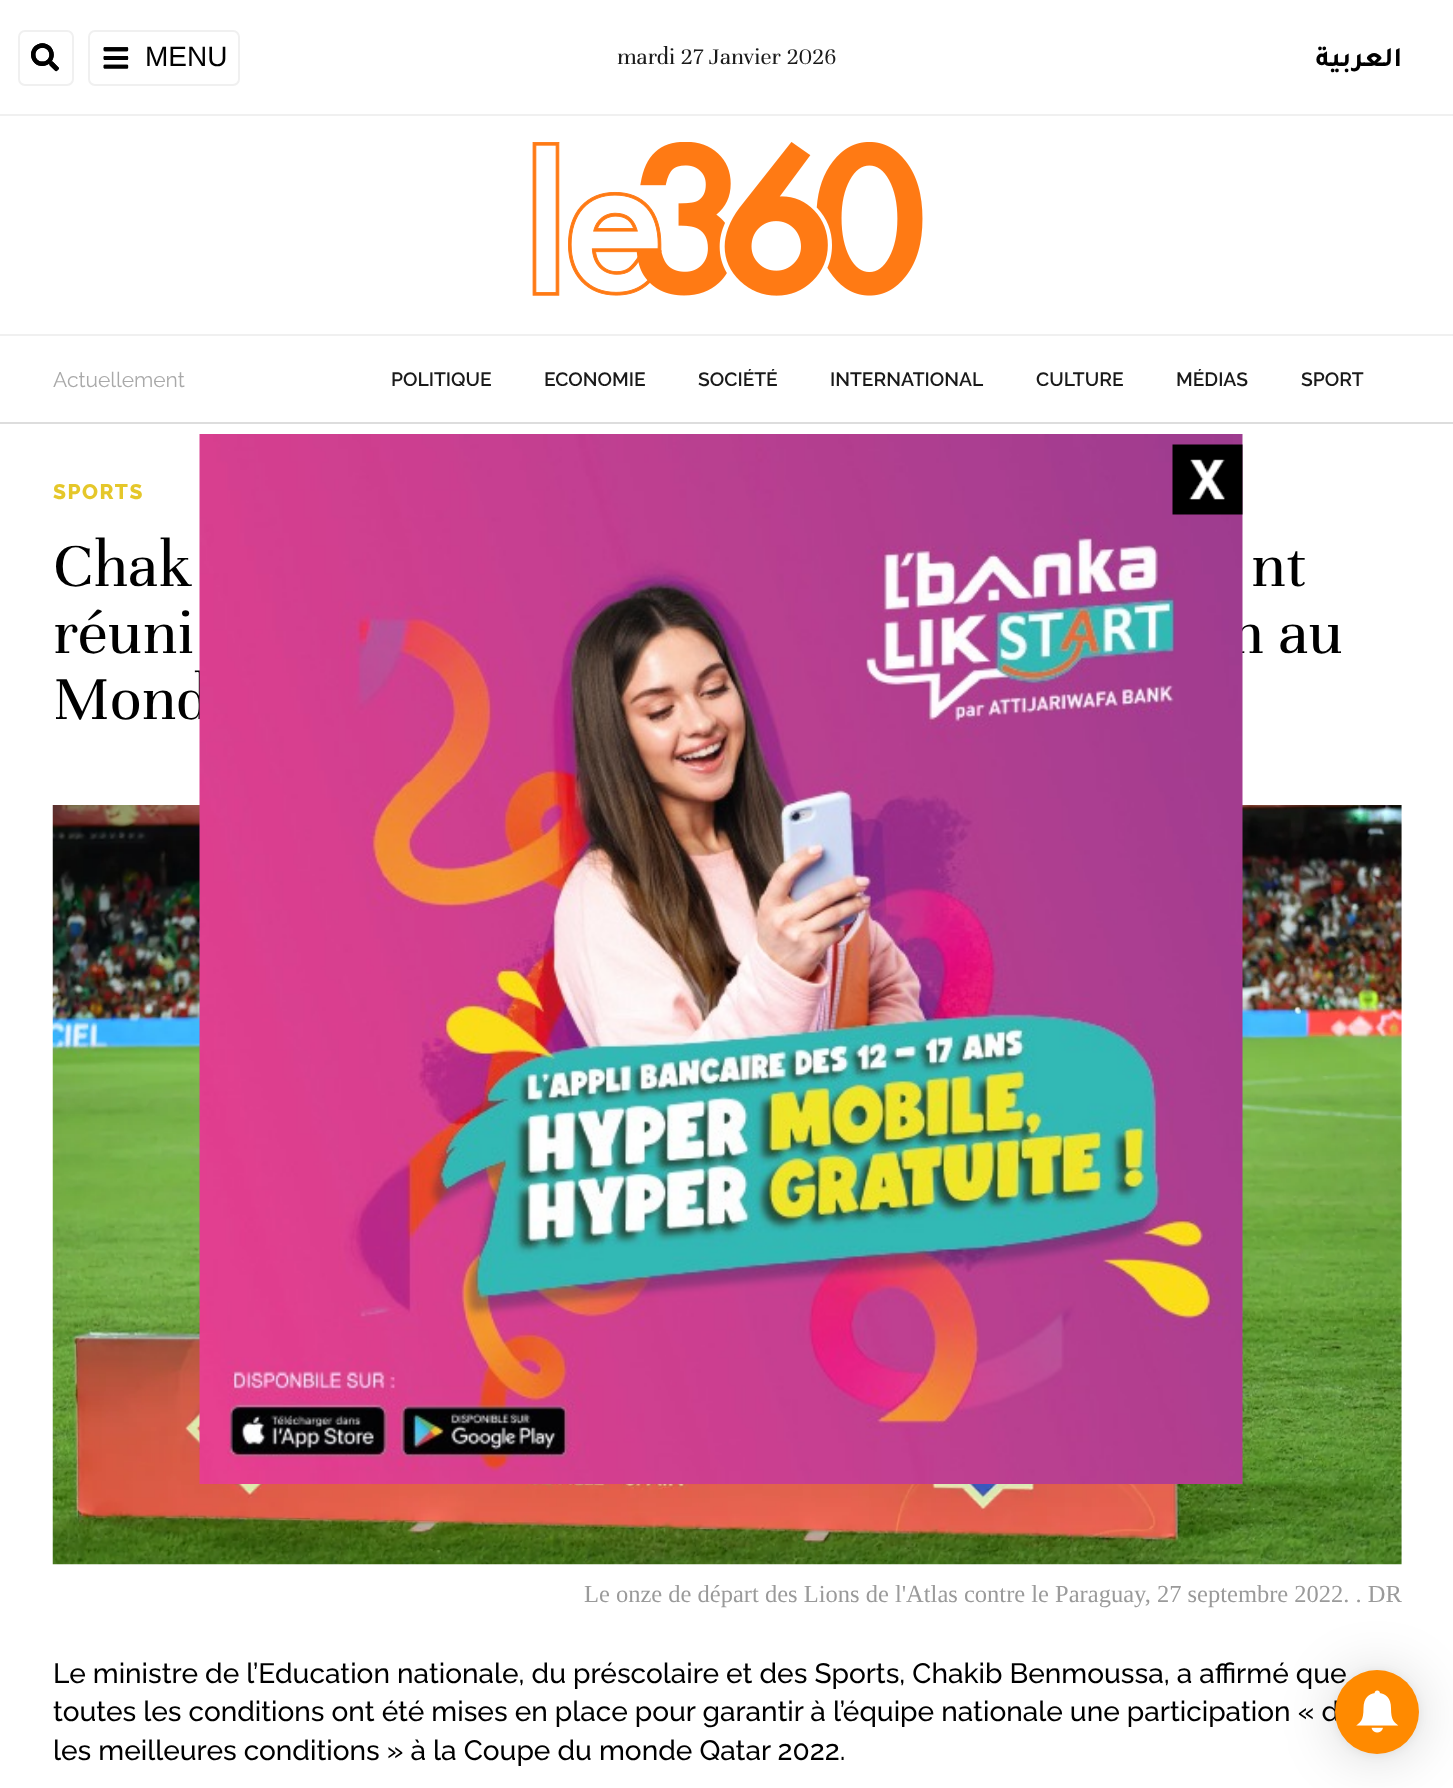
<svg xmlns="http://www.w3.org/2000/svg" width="1453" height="1788">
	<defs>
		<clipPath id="clip1"><rect x="390" y="369" width="1012" height="23" /></clipPath>
	</defs>
	<rect width="100%" height="100%" fill="#FFFFFF" />
	<rect x="0" y="114" width="1453" height="2" fill="#F0F0F0" />
	<rect x="19" y="31" width="54" height="54" rx="6" fill="none" stroke="#F0F0F0" stroke-width="2" />
	<image x="31" y="43" width="28" height="29" href="assets/img1.png" />
	<rect x="89" y="31" width="150" height="54" rx="6" fill="none" stroke="#F0F0F0" stroke-width="2" />
	<image x="103" y="47" width="26" height="22" href="assets/img2.png" />
	<text x="145" y="66" font-family="Liberation Sans" font-size="28" fill="#000000">MENU</text>
	<text x="617" y="64" font-family="Unna" font-size="24.5" fill="#1A1A1A">mardi 27 Janvier 2026</text>
	<text x="1402" y="66" font-family="Tajawal" font-size="28" font-weight="700" direction="rtl" fill="#000000">العربية</text>
	<rect x="0" y="334" width="1453" height="2" fill="#F0F0F0" />
	<image x="532" y="142" width="391" height="154" href="assets/img3.png" />
	<rect x="0" y="422" width="1453" height="2" fill="#DDDDDD" />
	<text x="53" y="387" font-family="Raleway" font-size="21" fill="#A9A9A9">Actuellement</text>
	<g font-family="Raleway" font-size="19.25" font-weight="600" fill="#1A1A1A">
		<text x="391" y="386">POLITIQUE</text>
		<text x="544" y="386">ECONOMIE</text>
	</g>
	<g clip-path="url(#clip1)">
		<text x="698" y="386" font-family="Raleway" font-size="19.25" font-weight="600" fill="#1A1A1A">SOCIÉTÉ</text>
	</g>
	<g font-family="Raleway" font-size="19.25" font-weight="600" fill="#1A1A1A">
		<text x="830" y="386">INTERNATIONAL</text>
		<text x="1036" y="386">CULTURE</text>
	</g>
	<g clip-path="url(#clip1)">
		<text x="1176" y="386" font-family="Raleway" font-size="19.25" font-weight="600" fill="#1A1A1A">MÉDIAS</text>
	</g>
	<text x="1301" y="386" font-family="Raleway" font-size="19.25" font-weight="600" fill="#1A1A1A">SPORT</text>
	<g font-family="Unna" font-size="66.5" fill="#000000">
		<text x="1229" y="653">n au</text>
		<text x="53" y="719">Mond</text>
	</g>
	<image x="52" y="805" width="1350" height="760" href="assets/img7.png" />
	<image x="199" y="434" width="1044" height="1050" href="assets/img4.png" />
	<image x="1172" y="444" width="71" height="71" href="assets/img5.png" />
	<rect x="1335" y="1673" width="84" height="84" rx="42" fill="#000000" fill-opacity="0.16" filter="blur(28px)" />
	<rect x="1335" y="1671" width="84" height="84" rx="42" fill="#000000" fill-opacity="0.06" filter="blur(5px)" />
	<g font-family="Raleway" font-size="28" font-weight="500" fill="#000000">
		<text x="53" y="1683">Le ministre de l’Education nationale, du préscolaire et des Sports, Chakib Benmoussa, a affirmé que</text>
		<text x="53" y="1721">toutes les conditions ont été mises en place pour garantir à l’équipe nationale une participation « d</text>
	</g>
	<circle cx="1377" cy="1712" r="42" fill="#FF8A00" />
	<image x="1356" y="1690" width="43" height="43" href="assets/img6.png" />
	<text x="53" y="499" font-family="Raleway" font-size="21" font-weight="800" letter-spacing="1.5" fill="#E5C72A">SPORTS</text>
	<g font-family="Unna" font-size="66.5" fill="#000000">
		<text x="53" y="586">Chak</text>
		<text x="1251" y="586">nt</text>
		<text x="53" y="653">réuni</text>
	</g>
	<text x="584" y="1602" font-family="Liberation Serif" font-size="24.5" fill="#9A9A9A">Le onze de départ des Lions de l'Atlas contre le Paraguay, 27 septembre 2022. . DR</text>
	<text x="53" y="1760" font-family="Raleway" font-size="28" font-weight="500" fill="#000000">les meilleures conditions » à la Coupe du monde Qatar 2022.</text>
</svg>
